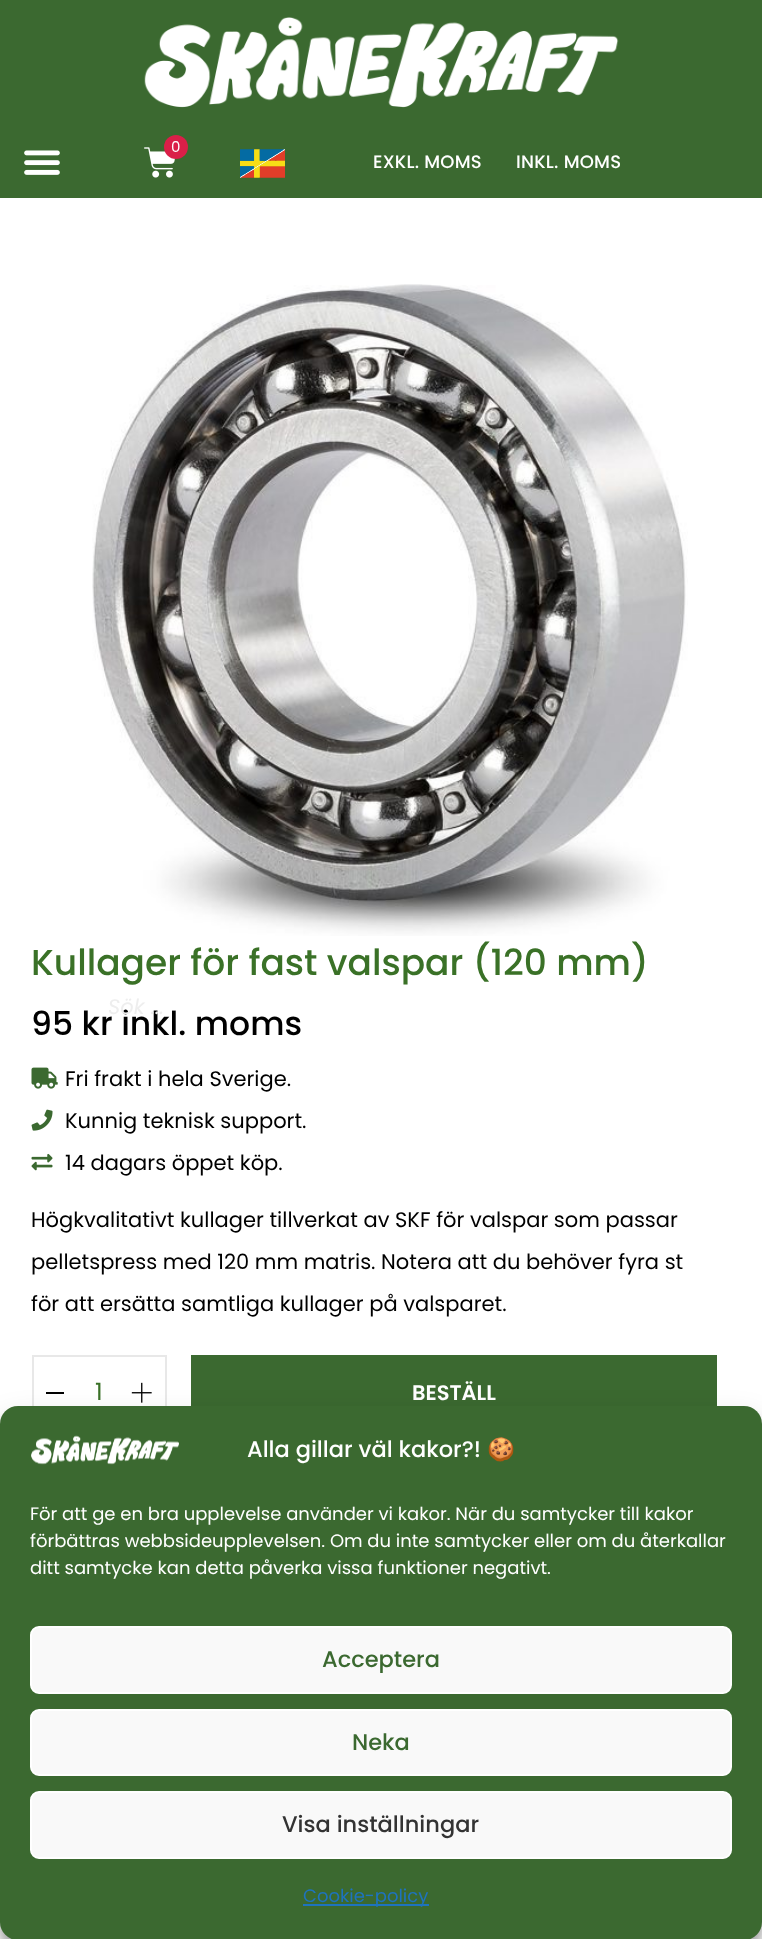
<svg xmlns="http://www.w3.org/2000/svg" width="762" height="1939">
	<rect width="100%" height="100%" fill="#FFFFFF" />
	<rect x="0" y="0" width="762" height="198" fill="#3B6930" />
	<image x="144" y="17" width="475" height="91" href="assets/img1.png" />
	<image x="144" y="147" width="31" height="31" href="assets/img2.png" />
	<circle cx="176" cy="147" r="12" fill="#DA1F48" />
	<text x="171" y="152" font-family="Poppins" font-size="15" fill="#FFFFFF">0</text>
	<image x="24" y="150" width="36" height="25" href="assets/img3.png" />
	<image x="240" y="149" width="45" height="29" href="assets/img4.png" />
	<image x="268" y="158" width="9" height="3" href="assets/img5.png" />
	<image x="240" y="149" width="45" height="29" href="assets/img6.png" />
	<g font-family="Poppins" font-size="18" font-weight="500" letter-spacing="0.25" fill="#FFFFFF">
		<text x="373" y="168">EXKL. MOMS</text>
		<text x="516" y="168">INKL. MOMS</text>
	</g>
	<image x="92" y="284" width="596" height="652" href="assets/img7.png" />
	<text x="31" y="975" font-family="Poppins" font-size="36" font-weight="500" fill="#3A7127">Kullager för fast valspar (120 mm)</text>
	<text x="31" y="1035" font-family="Poppins" font-size="33" font-weight="500" fill="#000000">95 kr inkl. moms</text>
	<image x="31" y="1067" width="27" height="22" href="assets/img8.png" />
	<text x="65" y="1086" font-family="Poppins" font-size="21" fill="#000000">Fri frakt i hela Sverige.</text>
	<image x="31" y="1109" width="22" height="22" href="assets/img9.png" />
	<text x="65" y="1128" font-family="Poppins" font-size="21" fill="#000000">Kunnig teknisk support.</text>
	<image x="31" y="1153" width="22" height="18" href="assets/img10.png" />
	<g font-family="Poppins" font-size="21" fill="#000000">
		<text x="65" y="1170">14 dagars öppet köp.</text>
		<text x="31" y="1227">Högkvalitativt kullager tillverkat av SKF för valspar som passar</text>
		<text x="31" y="1269">pelletspress med 120 mm matris. Notera att du behöver fyra st</text>
		<text x="31" y="1311">för att ersätta samtliga kullager på valsparet.</text>
	</g>
	<rect x="33" y="1356" width="133" height="73" fill="none" stroke="#E8E8E8" stroke-width="2" />
	<rect x="46" y="1392" width="18" height="2" fill="#000000" />
	<text x="95" y="1400" font-family="Poppins" font-size="24" fill="#3A7127">1</text>
	<image x="131" y="1382" width="21" height="21" href="assets/img11.png" />
	<rect x="191" y="1355" width="526" height="51" fill="#3B6930" />
	<text x="412" y="1400" font-family="Poppins" font-size="21" font-weight="600" fill="#FFFFFF">BESTÄLL</text>
	<text x="108" y="1014" font-family="Poppins" font-size="21" font-style="italic" fill="#EEEEEE">Sök ...</text>
	<rect x="0" y="1415" width="762" height="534" rx="18" fill="#000000" fill-opacity="0.23" filter="blur(4.5px)" />
	<rect x="0" y="1421" width="762" height="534" rx="18" fill="#000000" fill-opacity="0.19" filter="blur(15px)" />
	<rect x="0" y="1406" width="762" height="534" rx="18" fill="#3B6930" />
	<image x="31" y="1435" width="148" height="30" href="assets/img12.png" />
	<text x="247" y="1457" font-family="Poppins" font-size="22.5" font-weight="500" fill="#FFFFFF">Alla gillar väl kakor?!</text>
	<text x="487" y="1457" font-family="Noto Color Emoji" font-size="22.5" fill="#FFFFFF">🍪</text>
	<g font-family="Poppins" font-size="18" fill="#FFFFFF">
		<text x="30" y="1520">För att ge en bra upplevelse använder vi kakor. När du samtycker till kakor</text>
		<text x="30" y="1547">förbättras webbsideupplevelsen. Om du inte samtycker eller om du återkallar</text>
		<text x="30" y="1574">ditt samtycke kan detta påverka vissa funktioner negativt.</text>
	</g>
	<rect x="31" y="1627" width="700" height="66" rx="8" fill="#F9F9F9" stroke="#FFFFFF" stroke-width="2" />
	<text x="322" y="1667" font-family="Poppins" font-size="22.5" font-weight="500" fill="#3B6930">Acceptera</text>
	<rect x="31" y="1710" width="700" height="65" rx="8" fill="#F9F9F9" stroke="#FFFFFF" stroke-width="2" />
	<text x="352" y="1750" font-family="Poppins" font-size="22.5" font-weight="500" fill="#3B6930">Neka</text>
	<rect x="31" y="1792" width="700" height="66" rx="8" fill="#F9F9F9" stroke="#FFFFFF" stroke-width="2" />
	<text x="282" y="1832" font-family="Poppins" font-size="22.5" font-weight="500" fill="#333333">Visa inställningar</text>
	<rect x="303" y="1904" width="126" height="2" fill="#1E73BE" />
	<text x="303" y="1902" font-family="Poppins" font-size="18" fill="#1E73BE">Cookie-policy</text>
</svg>
